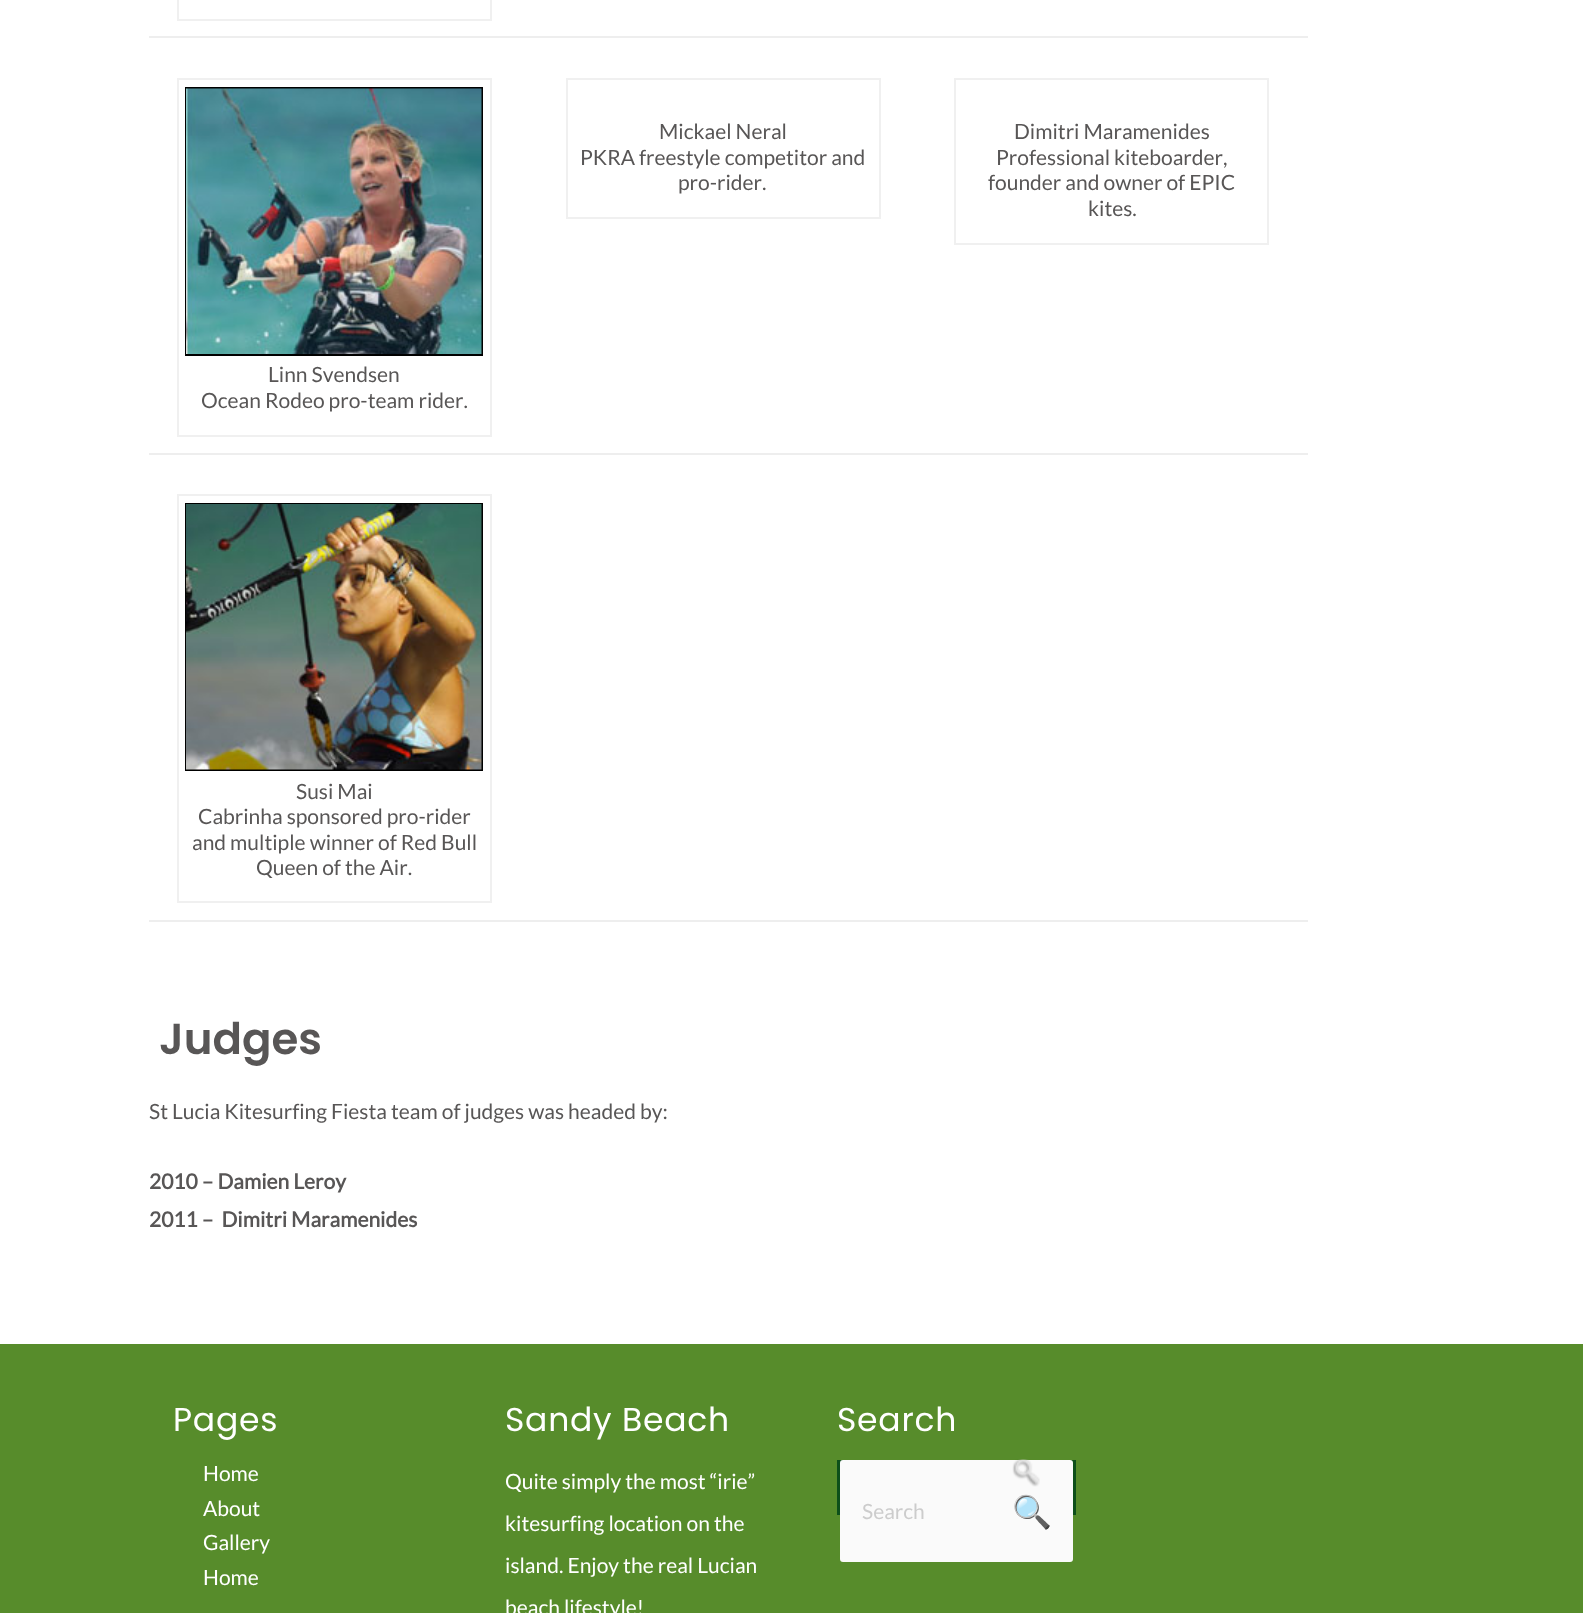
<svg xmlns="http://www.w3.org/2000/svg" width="1583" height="1613">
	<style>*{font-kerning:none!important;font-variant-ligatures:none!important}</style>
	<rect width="100%" height="100%" fill="#FFFFFF" />
	<rect x="149" y="36" width="1159" height="2" fill="#EEEEEE" />
	<rect x="178" y="-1" width="313" height="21" fill="none" stroke="#F0F0F0" stroke-width="2" />
	<rect x="149" y="453" width="1159" height="2" fill="#EEEEEE" />
	<rect x="567" y="79" width="313" height="139" fill="none" stroke="#F0F0F0" stroke-width="2" />
	<g font-family="Lato" font-size="21" fill="#585656">
		<text x="659" y="139">Mickael Neral</text>
		<text x="580" y="165">PKRA freestyle competitor and</text>
		<text x="678" y="190">pro-rider.</text>
	</g>
	<rect x="955" y="79" width="313" height="165" fill="none" stroke="#F0F0F0" stroke-width="2" />
	<g font-family="Lato" font-size="21" fill="#585656">
		<text x="1014" y="139">Dimitri Maramenides</text>
		<text x="996" y="165">Professional kiteboarder,</text>
		<text x="988" y="190">founder and owner of EPIC</text>
		<text x="1088" y="216">kites.</text>
	</g>
	<rect x="178" y="79" width="313" height="357" fill="none" stroke="#F0F0F0" stroke-width="2" />
	<rect x="186" y="88" width="296" height="267" fill="none" stroke="#000000" stroke-width="2" />
	<image x="186" y="88" width="296" height="266" href="assets/img1.png" />
	<g font-family="Lato" font-size="21" fill="#585656">
		<text x="268" y="382">Linn Svendsen</text>
		<text x="201" y="408">Ocean Rodeo pro-team rider.</text>
	</g>
	<rect x="149" y="920" width="1159" height="2" fill="#EEEEEE" />
	<rect x="178" y="495" width="313" height="407" fill="none" stroke="#F0F0F0" stroke-width="2" />
	<rect x="186" y="504" width="296" height="266" fill="none" stroke="#000000" stroke-width="2" />
	<image x="186" y="504" width="296" height="266" href="assets/img2.png" />
	<g font-family="Lato" font-size="21" fill="#585656">
		<text x="296" y="799">Susi Mai</text>
		<text x="198" y="824">Cabrinha sponsored pro-rider</text>
		<text x="192" y="850">and multiple winner of Red Bull</text>
		<text x="256" y="875">Queen of the Air.</text>
	</g>
	<text x="159" y="1054" font-family="Poppins" font-size="43.5" font-weight="600" fill="#585656">Judges</text>
	<text x="149" y="1119" font-family="Lato" font-size="21" fill="#585656">St Lucia Kitesurfing Fiesta team of judges was headed by:</text>
	<g font-family="Lato" font-size="21" font-weight="700" fill="#585656">
		<text x="149" y="1189">2010 – Damien Leroy</text>
		<text x="149" y="1227" xml:space="preserve">2011 –  Dimitri Maramenides</text>
	</g>
	<rect x="0" y="1344" width="1583" height="269" fill="#578C2B" />
	<text x="173" y="1431" font-family="Poppins" font-size="33" letter-spacing="0.75" fill="#FFFFFF">Pages</text>
	<g font-family="Lato" font-size="21" fill="#FFFFFF">
		<text x="203" y="1481">Home</text>
		<text x="203" y="1516">About</text>
		<text x="203" y="1550">Gallery</text>
		<text x="203" y="1585">Home</text>
	</g>
	<text x="505" y="1431" font-family="Poppins" font-size="33" letter-spacing="0.75" fill="#FFFFFF">Sandy Beach</text>
	<g font-family="Lato" font-size="21" fill="#FFFFFF">
		<text x="505" y="1489">Quite simply the most “irie”</text>
		<text x="505" y="1531">kitesurfing location on the</text>
		<text x="505" y="1573">island. Enjoy the real Lucian</text>
		<text x="505" y="1615">beach lifestyle!</text>
	</g>
	<text x="837" y="1431" font-family="Poppins" font-size="33" letter-spacing="0.75" fill="#FFFFFF">Search</text>
	<rect x="837" y="1460" width="239" height="55" fill="#0D4F1A" />
	<rect x="840" y="1460" width="233" height="102" rx="3" fill="#FAFAFA" />
	<image x="1012" y="1459" width="28" height="28" href="assets/img3.png" />
	<text x="862" y="1519" font-family="Lato" font-size="21" fill="#CCCCCC">Search</text>
	<text x="1012" y="1523" font-family="Noto Color Emoji" font-size="32" fill="#999898">🔍</text>
</svg>
